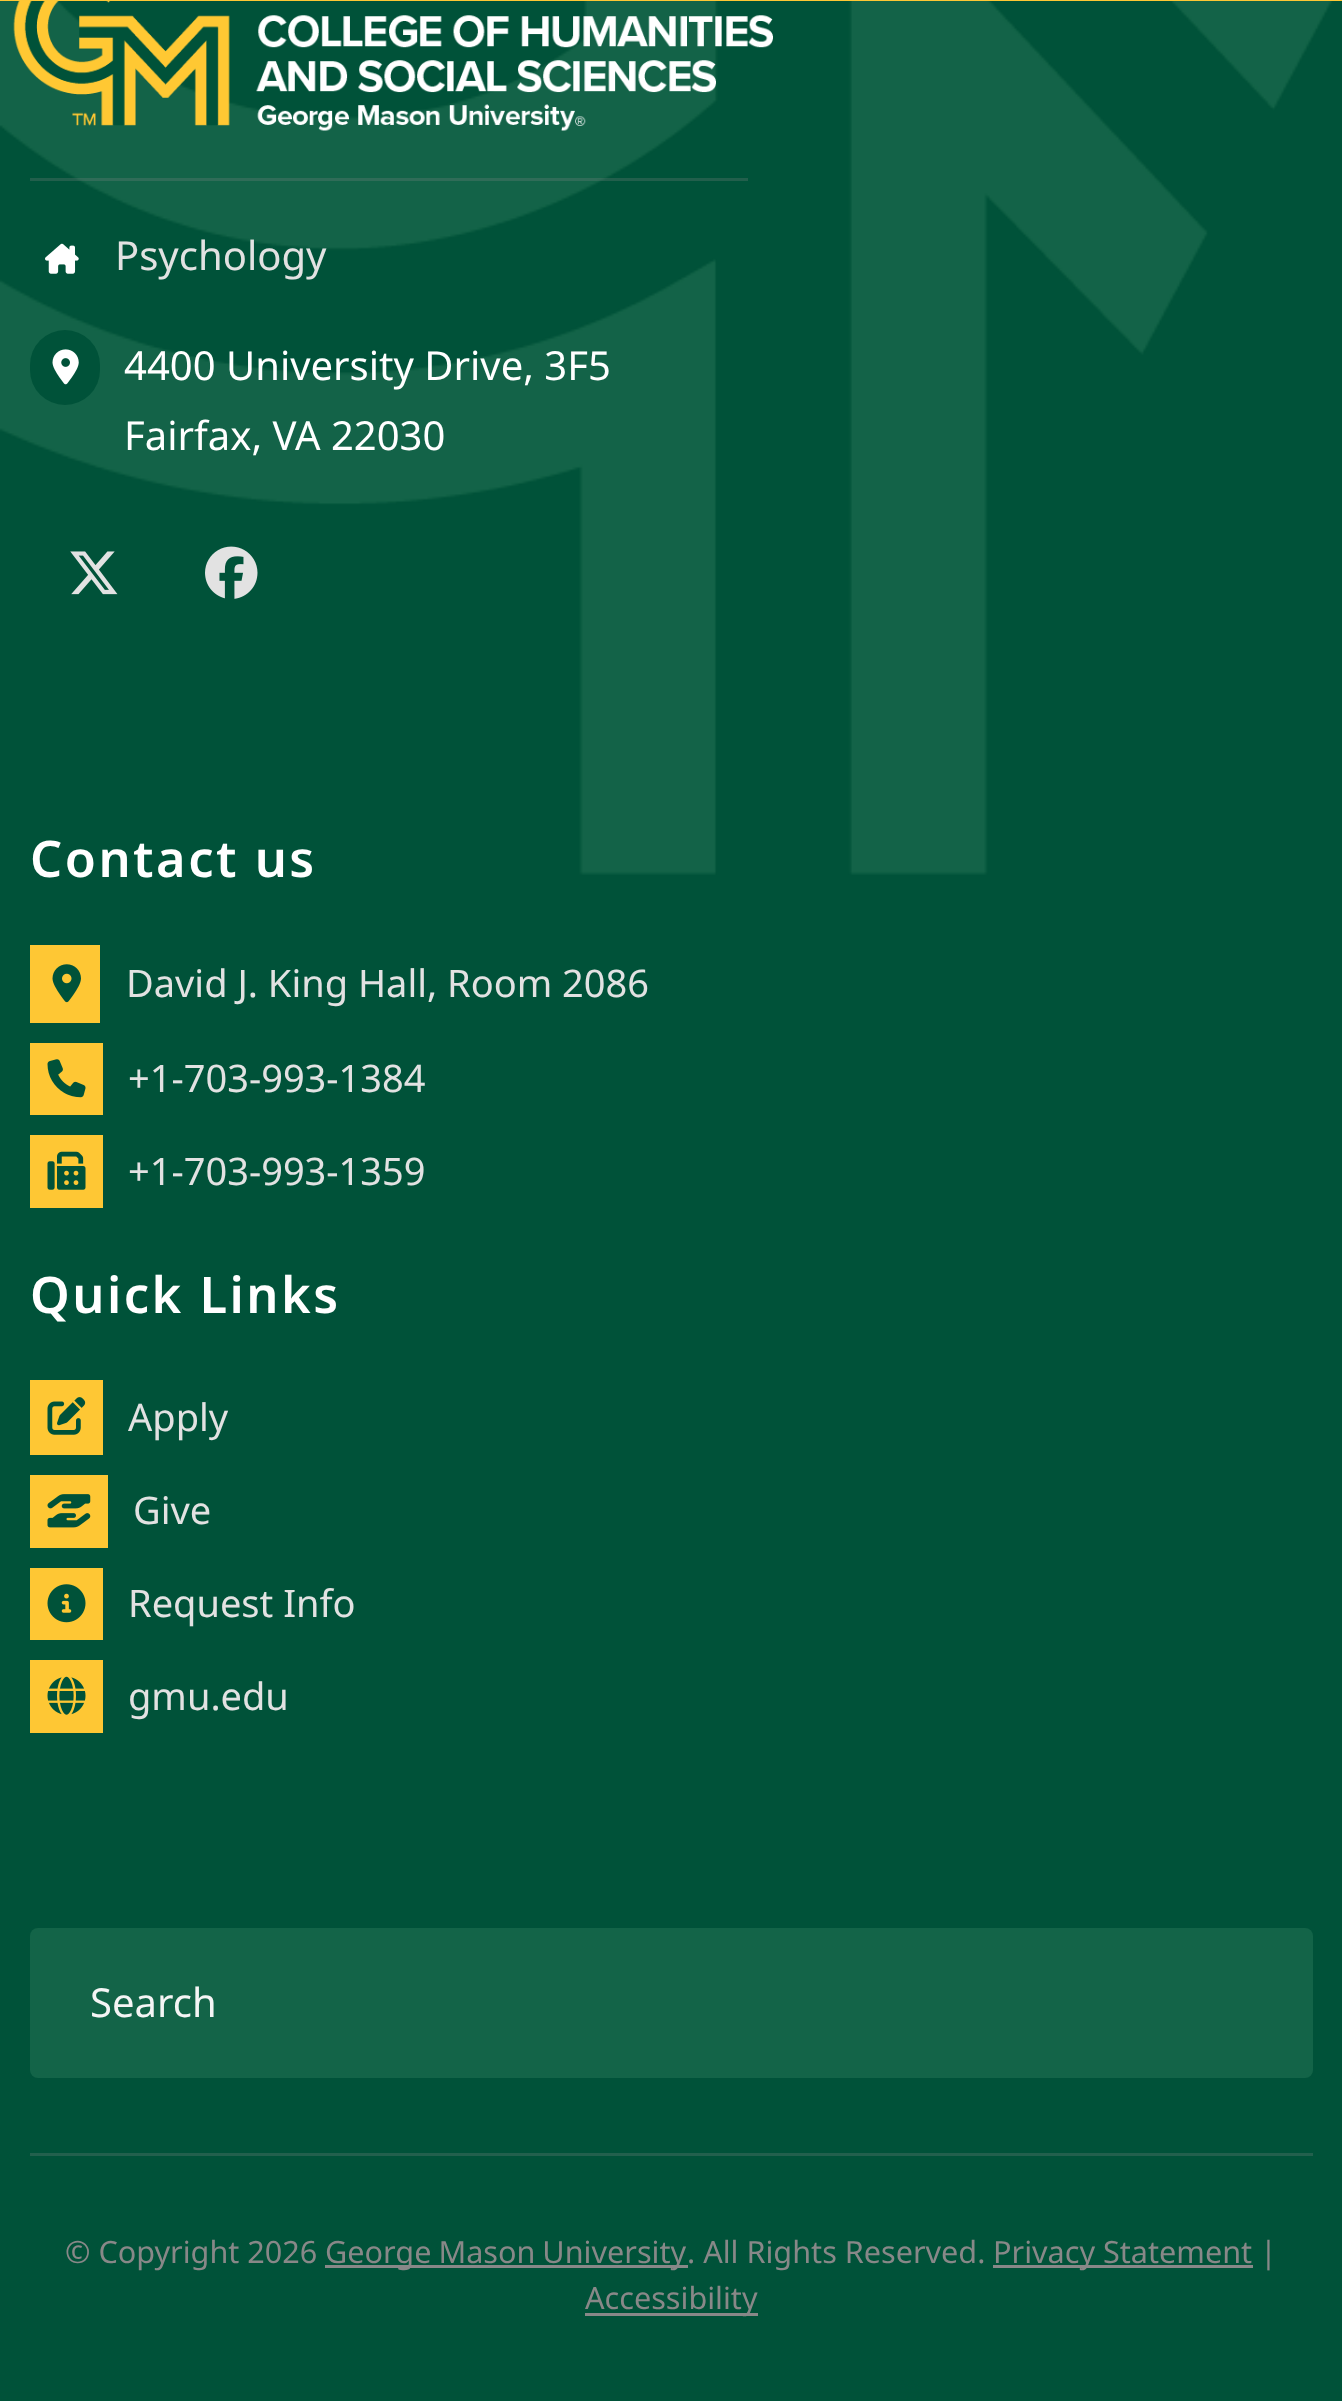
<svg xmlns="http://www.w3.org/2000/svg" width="1342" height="2401">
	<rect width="100%" height="100%" fill="#005239" />
	<rect x="0" y="0" width="1342" height="1" fill="#FEC734" />
	<image x="0" y="1" width="1333" height="874" href="assets/img1.png" />
	<image x="13" y="1" width="760" height="130" href="assets/img2.png" />
	<rect x="30" y="178" width="718" height="3" fill="#888888" fill-opacity="0.25" />
	<image x="45" y="243" width="34" height="31" href="assets/img3.png" />
	<text x="115" y="270" font-family="Noto Sans" font-size="40" fill="#E2E2E2">Psychology</text>
	<rect x="30" y="330" width="70" height="75" rx="35" fill="#005239" />
	<image x="52" y="349" width="27" height="36" href="assets/img4.png" />
	<g font-family="Noto Sans" font-size="40" fill="#FFFFFF">
		<text x="124" y="380">4400 University Drive, 3F5</text>
		<text x="124" y="450">Fairfax, VA 22030</text>
	</g>
	<image x="70" y="551" width="48" height="44" href="assets/img5.png" />
	<image x="205" y="546" width="53" height="53" href="assets/img6.png" />
	<text x="30" y="877" font-family="Noto Sans" font-size="50.5" font-weight="600" letter-spacing="2.5" fill="#FFFFFF">Contact us</text>
	<rect x="30" y="945" width="70" height="78" fill="#FEC734" />
	<image x="52" y="964" width="29" height="39" href="assets/img7.png" />
	<text x="126" y="997" font-family="Noto Sans" font-size="38" fill="#E2E2E2">David J. King Hall, Room 2086</text>
	<rect x="30" y="1043" width="73" height="72" fill="#FEC734" />
	<image x="47" y="1059" width="39" height="39" href="assets/img8.png" />
	<text x="128" y="1092" font-family="Noto Sans" font-size="38" fill="#E2E2E2">+1-703-993-1384</text>
	<rect x="30" y="1135" width="73" height="73" fill="#FEC734" />
	<image x="47" y="1151" width="39" height="39" href="assets/img9.png" />
	<text x="128" y="1185" font-family="Noto Sans" font-size="38" fill="#E2E2E2">+1-703-993-1359</text>
	<text x="30" y="1313" font-family="Noto Sans" font-size="50.5" font-weight="600" letter-spacing="2.5" fill="#FFFFFF">Quick Links</text>
	<rect x="30" y="1380" width="73" height="75" fill="#FEC734" />
	<image x="47" y="1397" width="39" height="38" href="assets/img10.png" />
	<text x="128" y="1431" font-family="Noto Sans" font-size="38" fill="#E2E2E2">Apply</text>
	<rect x="30" y="1475" width="78" height="73" fill="#FEC734" />
	<image x="47" y="1494" width="44" height="34" href="assets/img11.png" />
	<text x="133" y="1524" font-family="Noto Sans" font-size="38" fill="#E2E2E2">Give</text>
	<rect x="30" y="1568" width="73" height="72" fill="#FEC734" />
	<image x="47" y="1584" width="39" height="39" href="assets/img12.png" />
	<text x="128" y="1617" font-family="Noto Sans" font-size="38" fill="#E2E2E2">Request Info</text>
	<rect x="30" y="1660" width="73" height="73" fill="#FEC734" />
	<image x="47" y="1676" width="39" height="39" href="assets/img13.png" />
	<text x="128" y="1710" font-family="Noto Sans" font-size="38" fill="#E2E2E2">gmu.edu</text>
	<rect x="30" y="1928" width="1283" height="150" rx="8" fill="#136448" />
	<text x="90" y="2017" font-family="Noto Sans" font-size="40" fill="#F5F5F5">Search</text>
	<rect x="30" y="2153" width="1283" height="3" fill="#22604D" />
	<text x="65" y="2263" font-family="Noto Sans" font-size="30.6" fill="#888888">© Copyright 2026</text>
	<rect x="325" y="2265" width="363" height="3" fill="#888888" />
	<g font-family="Noto Sans" font-size="30.6" fill="#888888">
		<text x="325" y="2263" word-spacing="-1">George Mason University</text>
		<text x="687" y="2263">. All Rights Reserved.</text>
	</g>
	<rect x="993" y="2265" width="260" height="3" fill="#888888" />
	<text x="993" y="2263" font-family="Noto Sans" font-size="30.6" fill="#888888">Privacy Statement |</text>
	<rect x="585" y="2313" width="173" height="3" fill="#888888" />
	<text x="585" y="2309" font-family="Noto Sans" font-size="30.6" fill="#888888">Accessibility</text>
</svg>
